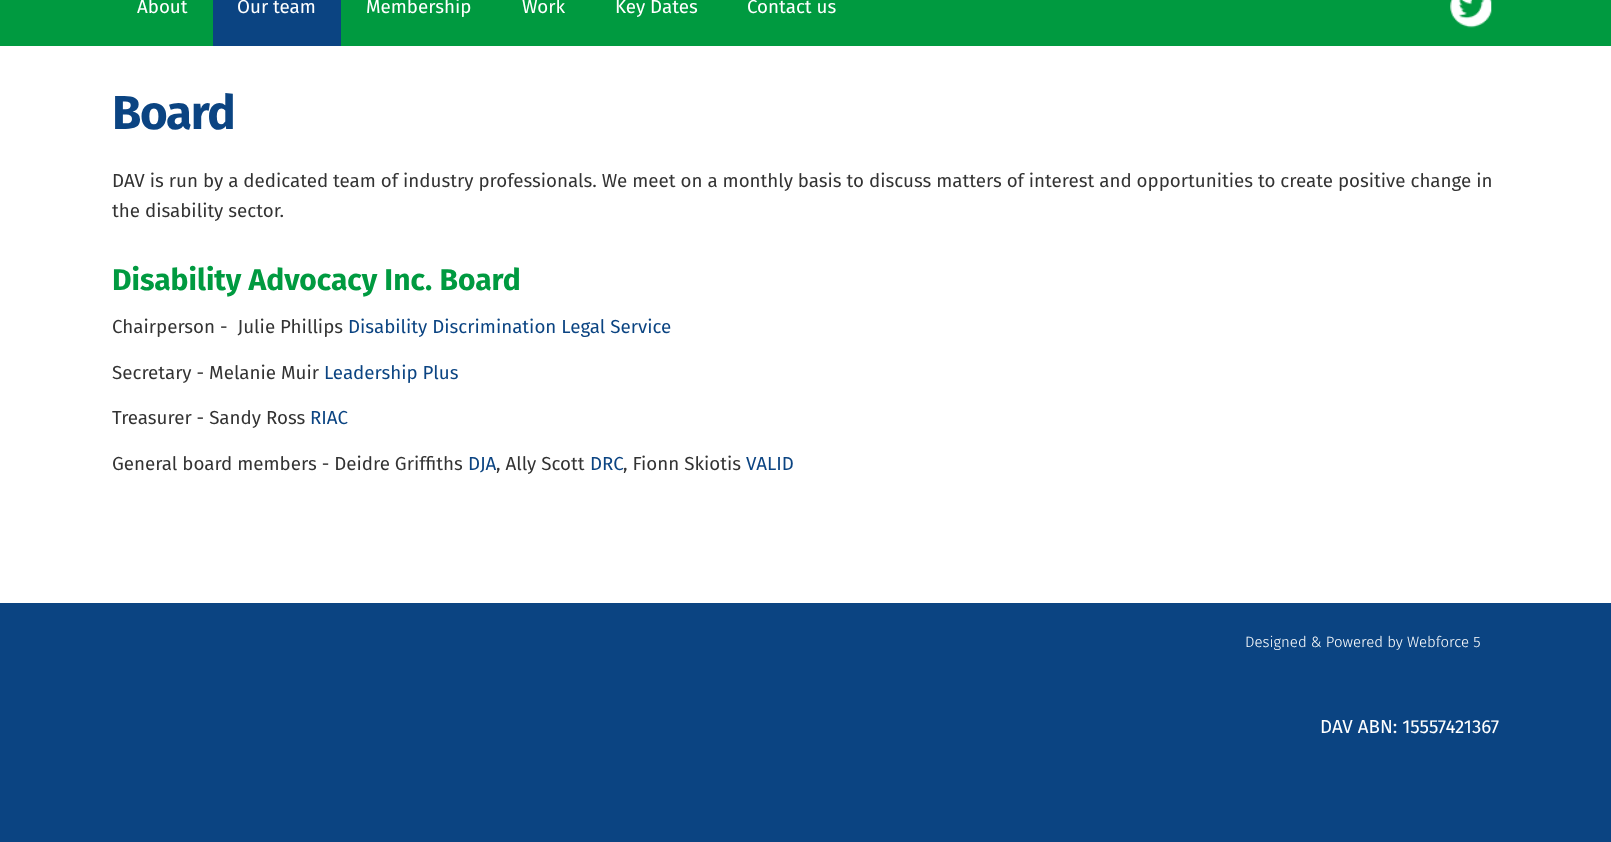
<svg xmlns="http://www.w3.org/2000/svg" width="1611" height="842">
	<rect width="100%" height="100%" fill="#FFFFFF" />
	<rect x="0" y="0" width="1611" height="46" fill="#009A40" />
	<text x="137" y="13" font-family="Fira Sans" font-size="18.75" fill="#FFFFFF">About</text>
	<rect x="213" y="0" width="128" height="46" fill="#0B4482" />
	<g font-family="Fira Sans" font-size="18.75" fill="#FFFFFF">
		<text x="237" y="13">Our team</text>
		<text x="366" y="13">Membership</text>
		<text x="522" y="13">Work</text>
		<text x="615" y="13">Key Dates</text>
		<text x="747" y="13">Contact us</text>
	</g>
	<image x="1450" y="0" width="42" height="28" href="assets/img1.png" />
	<text x="112" y="129" font-family="Fira Sans" font-size="47.5" font-weight="700" letter-spacing="-1.25" fill="#0B4482">Board</text>
	<g font-family="Fira Sans" font-size="18.75" fill="#333333">
		<text x="112" y="187">DAV is run by a dedicated team of industry professionals. We meet on a monthly basis to discuss matters of interest and opportunities to create positive change in</text>
		<text x="112" y="217">the disability sector.</text>
	</g>
	<text x="112" y="290" font-family="Fira Sans" font-size="30" font-weight="700" fill="#009A40">Disability Advocacy Inc. Board</text>
	<text x="112" y="333" font-family="Fira Sans" font-size="18.75" fill="#333333" xml:space="preserve">Chairperson -  Julie Phillips</text>
	<text x="348" y="333" font-family="Fira Sans" font-size="18.75" fill="#0B4482">Disability Discrimination Legal Service</text>
	<text x="112" y="379" font-family="Fira Sans" font-size="18.75" fill="#333333">Secretary - Melanie Muir</text>
	<text x="324" y="379" font-family="Fira Sans" font-size="18.75" fill="#0B4482">Leadership Plus</text>
	<text x="112" y="424" font-family="Fira Sans" font-size="18.75" fill="#333333">Treasurer - Sandy Ross</text>
	<text x="310" y="424" font-family="Fira Sans" font-size="18.75" fill="#0B4482">RIAC</text>
	<text x="112" y="470" font-family="Fira Sans" font-size="18.75" fill="#333333">General board members - Deidre Griffiths</text>
	<text x="468" y="470" font-family="Fira Sans" font-size="18.75" fill="#0B4482">DJA</text>
	<text x="496" y="470" font-family="Fira Sans" font-size="18.75" fill="#333333">, Ally Scott</text>
	<text x="590" y="470" font-family="Fira Sans" font-size="18.75" fill="#0B4482">DRC</text>
	<text x="623" y="470" font-family="Fira Sans" font-size="18.75" fill="#333333">, Fionn Skiotis</text>
	<text x="746" y="470" font-family="Fira Sans" font-size="18.75" fill="#0B4482">VALID</text>
	<rect x="0" y="603" width="1611" height="239" fill="#0B4482" />
	<text x="1245" y="647" font-family="Fira Sans" font-size="15" font-weight="300" fill="#FFFFFF">Designed &amp; Powered by Webforce 5</text>
	<text x="1320" y="733" font-family="Fira Sans" font-size="18.75" fill="#FFFFFF">DAV ABN: 15557421367</text>
</svg>
